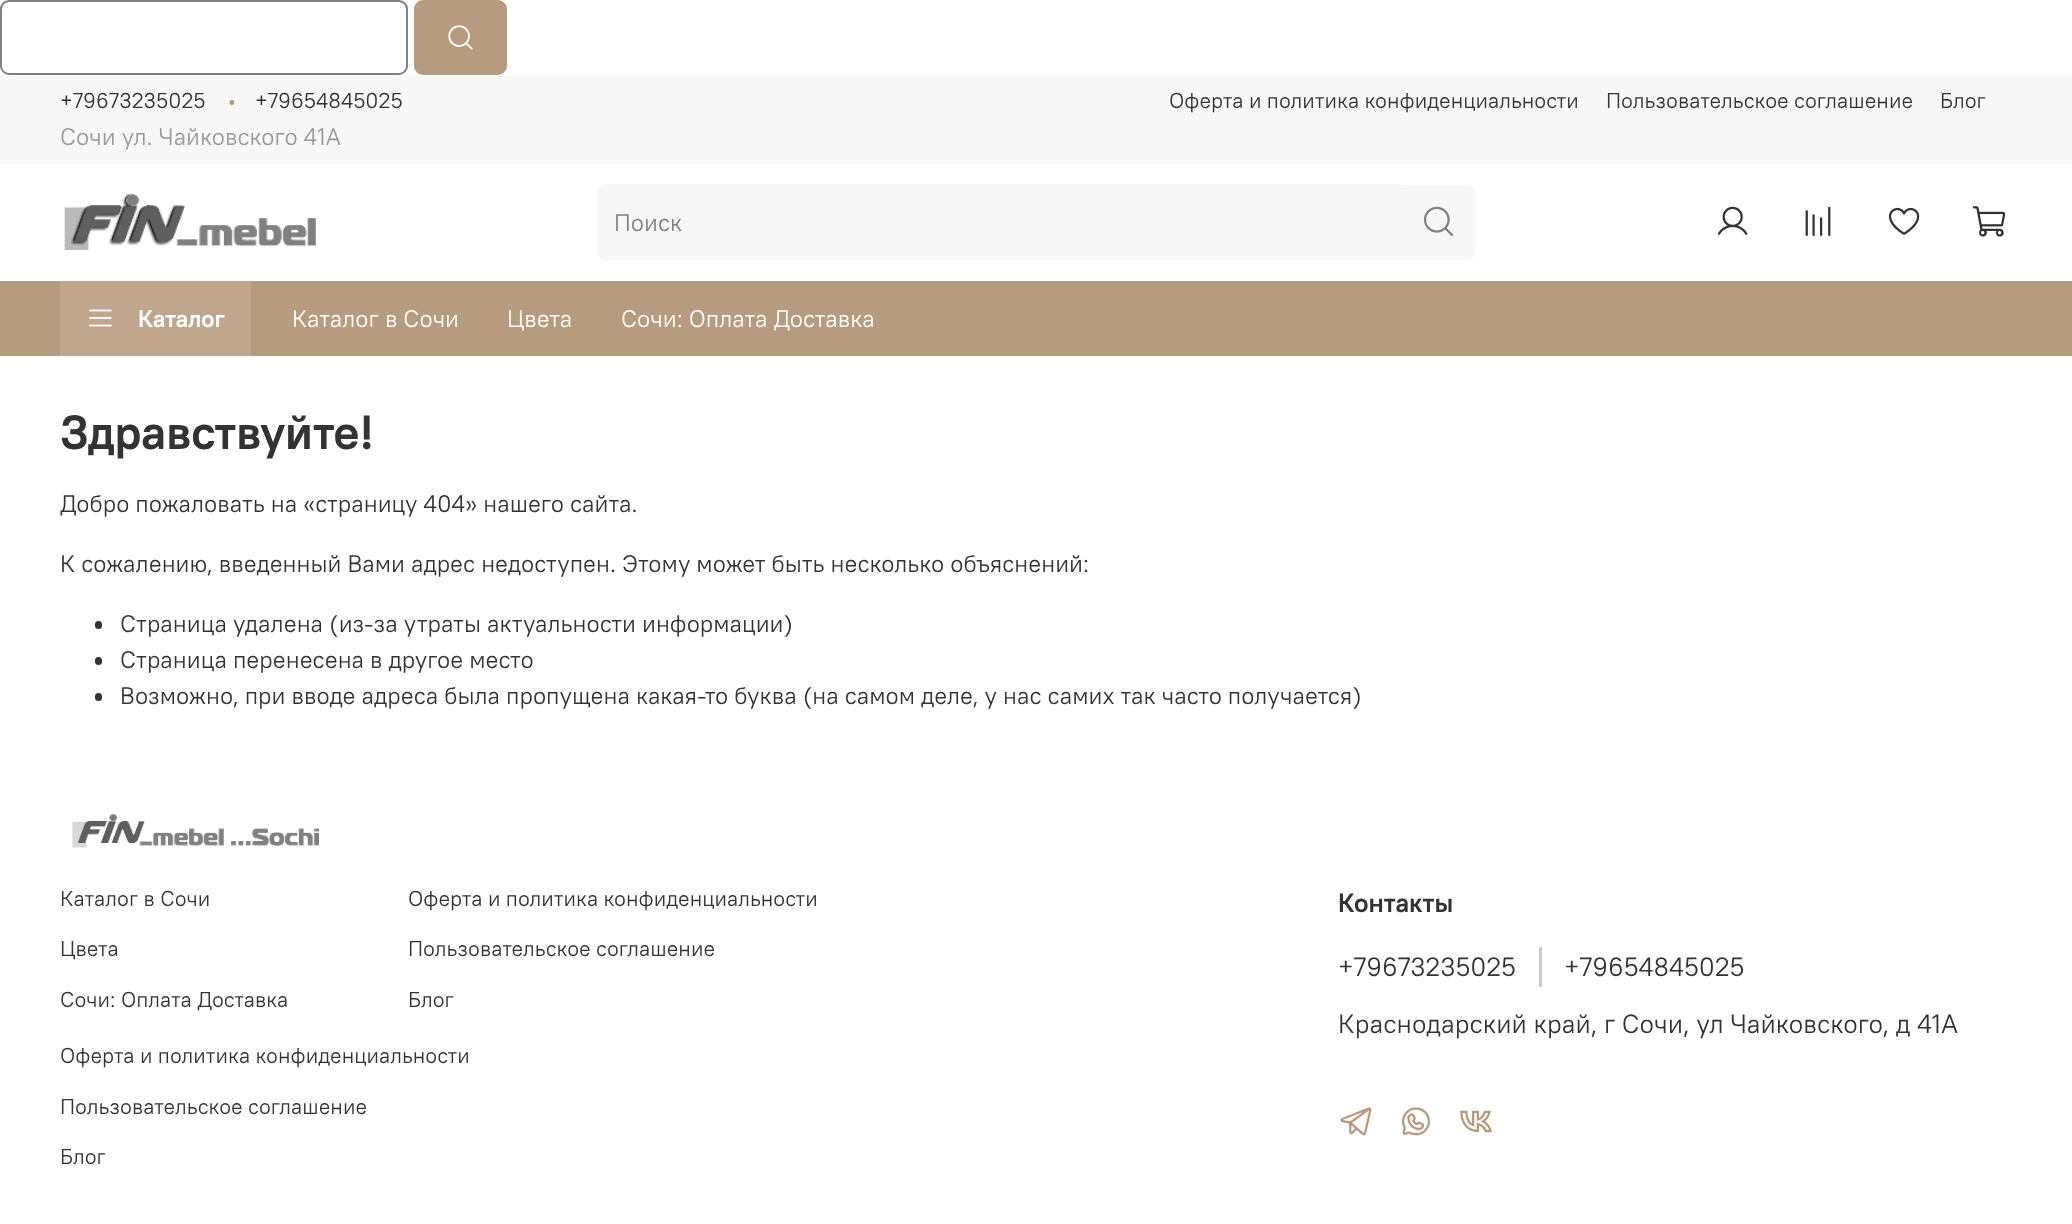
<svg xmlns="http://www.w3.org/2000/svg" width="2072" height="1224">
	<rect width="100%" height="100%" fill="#FFFFFF" />
	<rect x="1" y="1" width="406" height="73" rx="8" fill="none" stroke="#808080" stroke-width="2" />
	<rect x="414" y="0" width="93" height="75" rx="9" fill="#B79B7E" />
	<image x="448" y="25" width="25" height="25" href="assets/img1.png" />
	<rect x="0" y="75" width="2072" height="89" fill="#F7F7F7" />
	<text x="60" y="108" font-family="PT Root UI" font-size="21.6" fill="#333333">+79673235025</text>
	<text x="227" y="108" font-family="PT Root UI" font-size="21.6" fill="#B79B7E">•</text>
	<g font-family="PT Root UI" font-size="21.6" fill="#333333">
		<text x="255" y="108">+79654845025</text>
		<text x="1169" y="108">Оферта и политика конфиденциальности</text>
		<text x="1606" y="108">Пользовательское соглашение</text>
		<text x="1940" y="108">Блог</text>
	</g>
	<text x="60" y="145" font-family="PT Root UI" font-size="24" fill="#999999">Сочи ул. Чайковского 41А</text>
	<image x="64" y="193" width="252" height="57" href="assets/img2.png" />
	<path d="M606 185H1401V260H606C601 260 597 256 597 251V194C597 189 601 185 606 185Z" fill="#F7F7F7" />
	<path d="M606 184H1401V260H606C601 260 597 255 597 250V194C597 189 601 184 606 184ZM606 186H1401V258H606C602 258 598 255 598 250V194C598 189 602 186 606 186Z" fill="#F7F7F7" fill-rule="evenodd" />
	<text x="614" y="231" font-family="PT Root UI" font-size="24" fill="#808080">Поиск</text>
	<path d="M1401 185H1467C1472 185 1476 189 1476 194V251C1476 256 1472 260 1467 260H1401Z" fill="#F7F7F7" />
	<image x="1423" y="206" width="31" height="30" href="assets/img3.png" />
	<image x="1717" y="206" width="31" height="29" href="assets/img4.png" />
	<image x="1805" y="206" width="26" height="30" href="assets/img5.png" />
	<image x="1888" y="207" width="32" height="28" href="assets/img6.png" />
	<image x="1972" y="206" width="34" height="31" href="assets/img7.png" />
	<rect x="0" y="281" width="2072" height="75" fill="#B79B7E" />
	<rect x="60" y="281" width="191" height="75" fill="#BFA68C" />
	<image x="89" y="309" width="23" height="18" href="assets/img8.png" />
	<text x="138" y="327" font-family="PT Root UI" font-size="24" font-weight="700" fill="#FFFFFF">Каталог</text>
	<g font-family="PT Root UI" font-size="24" fill="#FFFFFF">
		<text x="292" y="327">Каталог в Сочи</text>
		<text x="507" y="327">Цвета</text>
		<text x="621" y="327">Сочи: Оплата Доставка</text>
	</g>
	<text x="60" y="449" font-family="PT Root UI" font-size="48" font-weight="700" fill="#333333">Здравствуйте!</text>
	<g font-family="PT Root UI" font-size="24" fill="#333333">
		<text x="60" y="512">Добро пожаловать на «страницу 404» нашего сайта.</text>
		<text x="60" y="572">К сожалению, введенный Вами адрес недоступен. Этому может быть несколько объяснений:</text>
	</g>
	<rect x="95" y="621" width="7" height="8" rx="3.5" fill="#333333" />
	<text x="120" y="632" font-family="PT Root UI" font-size="24" fill="#333333">Страница удалена (из-за утраты актуальности информации)</text>
	<rect x="95" y="657" width="7" height="8" rx="3.5" fill="#333333" />
	<text x="120" y="668" font-family="PT Root UI" font-size="24" fill="#333333">Страница перенесена в другое место</text>
	<rect x="95" y="693" width="7" height="8" rx="3.5" fill="#333333" />
	<text x="120" y="704" font-family="PT Root UI" font-size="24" fill="#333333">Возможно, при вводе адреса была пропущена какая-то буква (на самом деле, у нас самих так часто получается)</text>
	<image x="72" y="813" width="247" height="35" href="assets/img9.png" />
	<g font-family="PT Root UI" font-size="21.6" fill="#333333">
		<text x="60" y="906">Каталог в Сочи</text>
		<text x="60" y="956">Цвета</text>
		<text x="60" y="1007">Сочи: Оплата Доставка</text>
		<text x="408" y="906">Оферта и политика конфиденциальности</text>
		<text x="408" y="956">Пользовательское соглашение</text>
		<text x="408" y="1007">Блог</text>
		<text x="60" y="1063">Оферта и политика конфиденциальности</text>
		<text x="60" y="1114">Пользовательское соглашение</text>
		<text x="60" y="1164">Блог</text>
	</g>
	<text x="1338" y="912" font-family="PT Root UI" font-size="26.4" font-weight="700" fill="#333333">Контакты</text>
	<rect x="1539" y="947" width="3" height="40" fill="#CCCCCC" />
	<g font-family="PT Root UI" font-size="26.4" fill="#333333">
		<text x="1338" y="976">+79673235025</text>
		<text x="1564" y="976">+79654845025</text>
		<text x="1338" y="1033">Краснодарский край, г Сочи, ул Чайковского, д 41А</text>
	</g>
	<image x="1340" y="1107" width="32" height="29" href="assets/img10.png" />
	<image x="1402" y="1107" width="28" height="29" href="assets/img11.png" />
	<image x="1460" y="1110" width="32" height="23" href="assets/img12.png" />
</svg>
